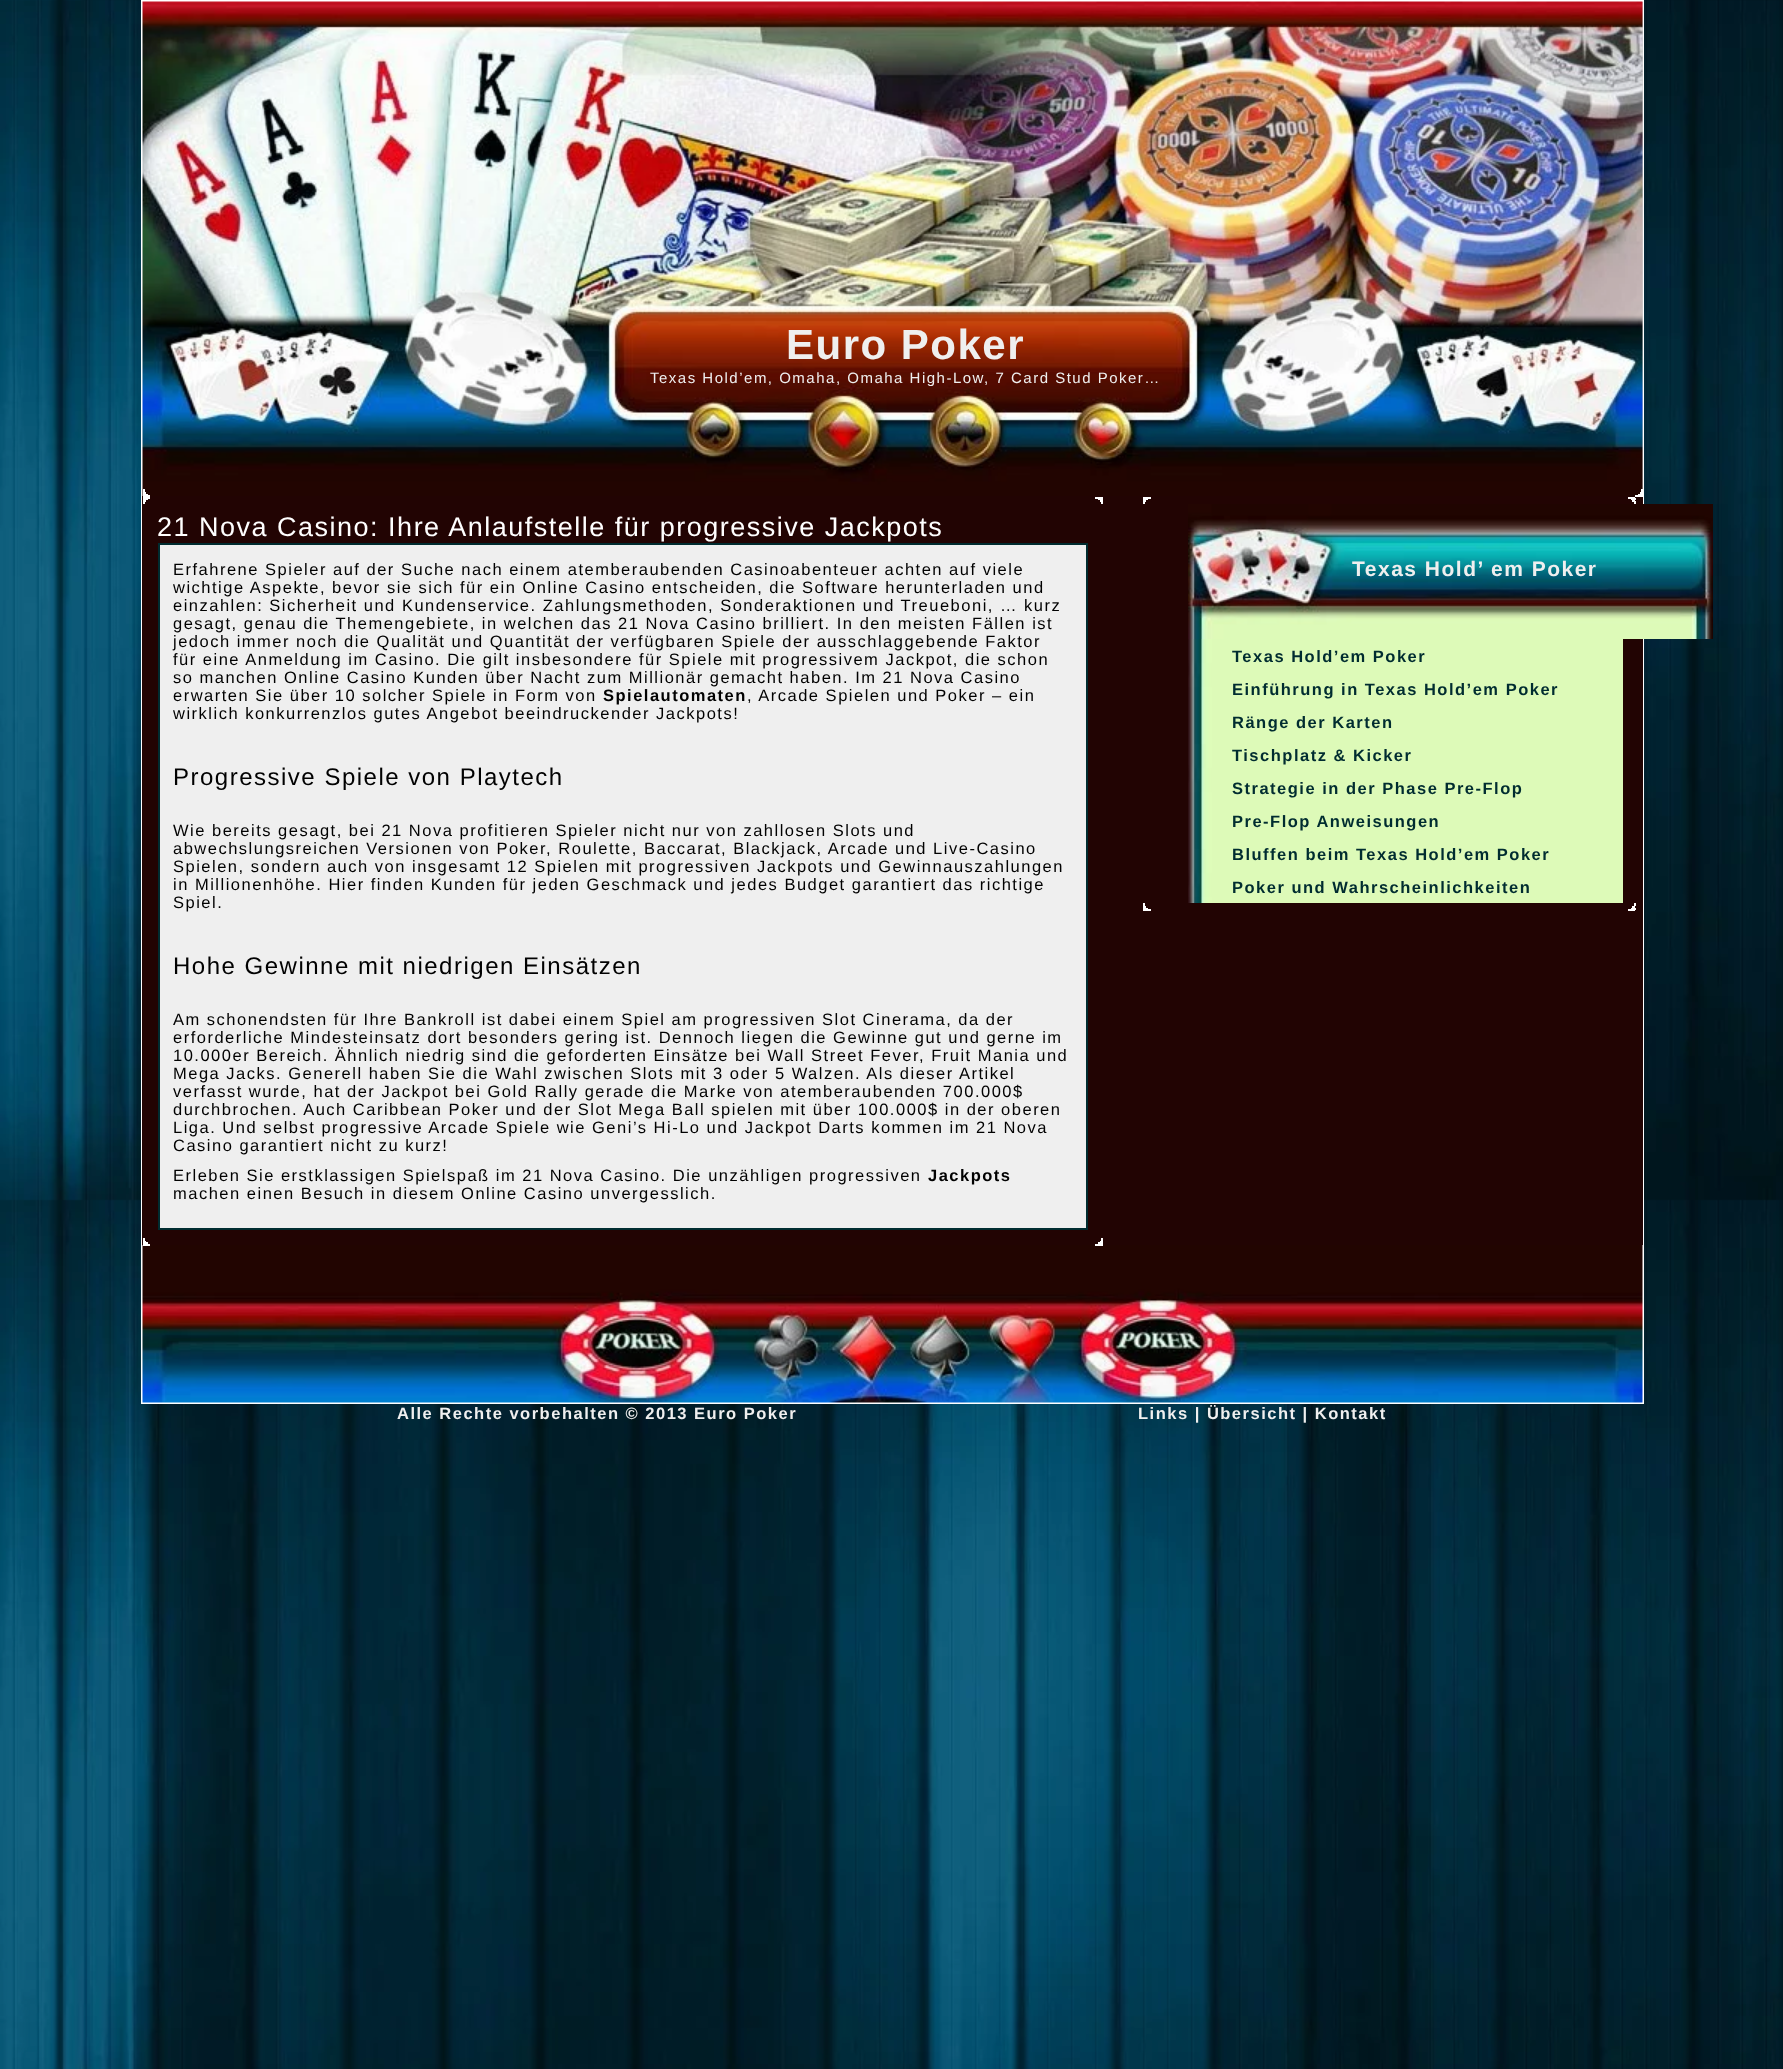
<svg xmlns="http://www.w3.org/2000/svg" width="1783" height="2069">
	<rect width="100%" height="100%" fill="#FFFFFF" />
	<image x="0" y="0" width="1783" height="2069" href="assets/img1.png" />
	<rect x="142" y="1" width="1501" height="1402" fill="none" stroke="#FFFFFF" stroke-width="2" />
	<rect x="1642" y="2" width="1" height="487" fill="#D3D3D3" />
	<image x="142" y="1" width="1501" height="495" href="assets/img2.png" />
	<text x="786" y="359" font-family="Liberation Sans" font-size="42" font-weight="700" letter-spacing="1.5" fill="#EFEFEF">Euro Poker</text>
	<text x="650" y="383" font-family="Liberation Sans" font-size="15" letter-spacing="1.5" fill="#EFEFEF">Texas Hold’em, Omaha, Omaha High-Low, 7 Card Stud Poker…</text>
	<rect x="1641" y="489" width="2" height="3" fill="#FFFFFF" />
	<rect x="143" y="489" width="2" height="3" fill="#FFFFFF" />
	<rect x="1640" y="492" width="3" height="2" fill="#FFFFFF" />
	<rect x="143" y="492" width="3" height="2" fill="#FFFFFF" />
	<rect x="1638" y="494" width="5" height="1" fill="#FFFFFF" />
	<rect x="143" y="494" width="5" height="1" fill="#FFFFFF" />
	<rect x="142" y="496" width="1501" height="749" fill="#220403" />
	<rect x="1635" y="495" width="8" height="2" fill="#FFFFFF" />
	<rect x="143" y="495" width="7" height="4" fill="#FFFFFF" />
	<rect x="1095" y="497" width="8" height="2" fill="#FFFFFF" />
	<rect x="1098" y="499" width="5" height="1" fill="#FFFFFF" />
	<rect x="143" y="499" width="5" height="1" fill="#FFFFFF" />
	<rect x="1100" y="500" width="3" height="2" fill="#FFFFFF" />
	<rect x="143" y="500" width="3" height="2" fill="#FFFFFF" />
	<rect x="1101" y="501" width="2" height="3" fill="#FFFFFF" />
	<rect x="143" y="501" width="2" height="3" fill="#FFFFFF" />
	<text x="157" y="536" font-family="Liberation Sans" font-size="27" letter-spacing="1.5" fill="#FFFFFF">21 Nova Casino: Ihre Anlaufstelle für progressive Jackpots</text>
	<rect x="159" y="544" width="928" height="685" fill="#EFEFEF" stroke="#002C30" stroke-width="2" />
	<g font-family="Liberation Sans" font-size="16.5" letter-spacing="1.5" fill="#010101">
		<text x="173" y="575">Erfahrene Spieler auf der Suche nach einem atemberaubenden Casinoabenteuer achten auf viele</text>
		<text x="173" y="593">wichtige Aspekte, bevor sie sich für ein Online Casino entscheiden, die Software herunterladen und</text>
		<text x="173" y="611">einzahlen: Sicherheit und Kundenservice. Zahlungsmethoden, Sonderaktionen und Treueboni, … kurz</text>
		<text x="173" y="629">gesagt, genau die Themengebiete, in welchen das 21 Nova Casino brilliert. In den meisten Fällen ist</text>
		<text x="173" y="647">jedoch immer noch die Qualität und Quantität der verfügbaren Spiele der ausschlaggebende Faktor</text>
		<text x="173" y="665">für eine Anmeldung im Casino. Die gilt insbesondere für Spiele mit progressivem Jackpot, die schon</text>
		<text x="173" y="683">so manchen Online Casino Kunden über Nacht zum Millionär gemacht haben. Im 21 Nova Casino</text>
		<text x="173" y="701">erwarten Sie über 10 solcher Spiele in Form von</text>
	</g>
	<text x="603" y="701" font-family="Liberation Sans" font-size="16.5" font-weight="700" letter-spacing="1.5" fill="#010101">Spielautomaten</text>
	<g font-family="Liberation Sans" font-size="16.5" letter-spacing="1.5" fill="#010101">
		<text x="747" y="701">, Arcade Spielen und Poker – ein</text>
		<text x="173" y="719">wirklich konkurrenzlos gutes Angebot beeindruckender Jackpots!</text>
	</g>
	<text x="173" y="785" font-family="Liberation Sans" font-size="24" letter-spacing="1.5" fill="#010101">Progressive Spiele von Playtech</text>
	<g font-family="Liberation Sans" font-size="16.5" letter-spacing="1.5" fill="#010101">
		<text x="173" y="836">Wie bereits gesagt, bei 21 Nova profitieren Spieler nicht nur von zahllosen Slots und</text>
		<text x="173" y="854">abwechslungsreichen Versionen von Poker, Roulette, Baccarat, Blackjack, Arcade und Live-Casino</text>
		<text x="173" y="872">Spielen, sondern auch von insgesamt 12 Spielen mit progressiven Jackpots und Gewinnauszahlungen</text>
		<text x="173" y="890">in Millionenhöhe. Hier finden Kunden für jeden Geschmack und jedes Budget garantiert das richtige</text>
		<text x="173" y="908">Spiel.</text>
	</g>
	<text x="173" y="974" font-family="Liberation Sans" font-size="24" letter-spacing="1.5" fill="#010101">Hohe Gewinne mit niedrigen Einsätzen</text>
	<g font-family="Liberation Sans" font-size="16.5" letter-spacing="1.5" fill="#010101">
		<text x="173" y="1025">Am schonendsten für Ihre Bankroll ist dabei einem Spiel am progressiven Slot Cinerama, da der</text>
		<text x="173" y="1043">erforderliche Mindesteinsatz dort besonders gering ist. Dennoch liegen die Gewinne gut und gerne im</text>
		<text x="173" y="1061">10.000er Bereich. Ähnlich niedrig sind die geforderten Einsätze bei Wall Street Fever, Fruit Mania und</text>
		<text x="173" y="1079">Mega Jacks. Generell haben Sie die Wahl zwischen Slots mit 3 oder 5 Walzen. Als dieser Artikel</text>
		<text x="173" y="1097">verfasst wurde, hat der Jackpot bei Gold Rally gerade die Marke von atemberaubenden 700.000$</text>
		<text x="173" y="1115">durchbrochen. Auch Caribbean Poker und der Slot Mega Ball spielen mit über 100.000$ in der oberen</text>
		<text x="173" y="1133">Liga. Und selbst progressive Arcade Spiele wie Geni’s Hi-Lo und Jackpot Darts kommen im 21 Nova</text>
		<text x="173" y="1151">Casino garantiert nicht zu kurz!</text>
		<text x="173" y="1181">Erleben Sie erstklassigen Spielspaß im 21 Nova Casino. Die unzähligen progressiven</text>
	</g>
	<text x="928" y="1181" font-family="Liberation Sans" font-size="16.5" font-weight="700" letter-spacing="1.5" fill="#010101">Jackpots</text>
	<text x="173" y="1199" font-family="Liberation Sans" font-size="16.5" letter-spacing="1.5" fill="#010101">machen einen Besuch in diesem Online Casino unvergesslich.</text>
	<rect x="1101" y="1238" width="2" height="3" fill="#FFFFFF" />
	<rect x="143" y="1238" width="2" height="3" fill="#FFFFFF" />
	<rect x="1100" y="1241" width="3" height="1" fill="#FFFFFF" />
	<rect x="143" y="1241" width="3" height="1" fill="#FFFFFF" />
	<rect x="1098" y="1242" width="5" height="2" fill="#FFFFFF" />
	<rect x="143" y="1242" width="5" height="2" fill="#FFFFFF" />
	<image x="142" y="1245" width="1501" height="158" href="assets/img5.png" />
	<rect x="1095" y="1244" width="8" height="2" fill="#FFFFFF" />
	<rect x="143" y="1244" width="7" height="2" fill="#FFFFFF" />
	<rect x="1628" y="497" width="7" height="2" fill="#FFFFFF" />
	<rect x="1143" y="497" width="8" height="2" fill="#FFFFFF" />
	<rect x="1631" y="498" width="5" height="2" fill="#FFFFFF" />
	<rect x="1143" y="499" width="5" height="1" fill="#FFFFFF" />
	<rect x="1632" y="500" width="3" height="2" fill="#FFFFFF" />
	<rect x="1143" y="500" width="3" height="2" fill="#FFFFFF" />
	<rect x="1634" y="501" width="2" height="3" fill="#FFFFFF" />
	<rect x="1143" y="501" width="2" height="3" fill="#FFFFFF" />
	<image x="1188" y="504" width="525" height="135" href="assets/img3.png" />
	<text x="1352" y="576" font-family="Liberation Sans" font-size="21" font-weight="700" letter-spacing="1.5" fill="#EFEFEF">Texas Hold’ em Poker</text>
	<image x="1188" y="639" width="435" height="264" href="assets/img4.png" />
	<g font-family="Liberation Sans" font-size="16.5" font-weight="700" letter-spacing="1.5" fill="#002C30">
		<text x="1232" y="662">Texas Hold’em Poker</text>
		<text x="1232" y="695">Einführung in Texas Hold’em Poker</text>
		<text x="1232" y="728">Ränge der Karten</text>
		<text x="1232" y="761">Tischplatz &amp; Kicker</text>
		<text x="1232" y="794">Strategie in der Phase Pre-Flop</text>
		<text x="1232" y="827">Pre-Flop Anweisungen</text>
		<text x="1232" y="860">Bluffen beim Texas Hold’em Poker</text>
		<text x="1232" y="893">Poker und Wahrscheinlichkeiten</text>
	</g>
	<rect x="1634" y="903" width="2" height="3" fill="#FFFFFF" />
	<rect x="1143" y="903" width="2" height="3" fill="#FFFFFF" />
	<rect x="1632" y="906" width="3" height="2" fill="#FFFFFF" />
	<rect x="1143" y="906" width="3" height="2" fill="#FFFFFF" />
	<rect x="1631" y="908" width="5" height="2" fill="#FFFFFF" />
	<rect x="1143" y="908" width="5" height="1" fill="#FFFFFF" />
	<rect x="1628" y="909" width="7" height="2" fill="#FFFFFF" />
	<rect x="1143" y="909" width="8" height="2" fill="#FFFFFF" />
	<g font-family="Liberation Sans" font-size="16.5" font-weight="700" letter-spacing="1.5" fill="#EFEFEF">
		<text x="397" y="1419">Alle Rechte vorbehalten © 2013 Euro Poker</text>
		<text x="1138" y="1419">Links | Übersicht | Kontakt</text>
	</g>
</svg>
